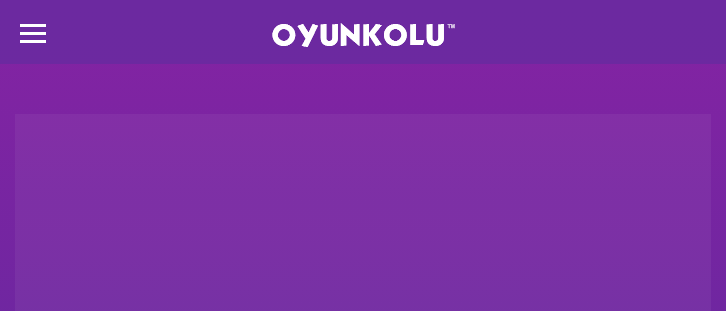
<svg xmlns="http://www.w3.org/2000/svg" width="726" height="311">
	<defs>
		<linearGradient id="g1" gradientUnits="userSpaceOnUse" x1="363" y1="0" x2="363" y2="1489"><stop offset="0" stop-color="#8523A3" /><stop offset="1" stop-color="#1E3297" /></linearGradient>
		<linearGradient id="g2" gradientUnits="userSpaceOnUse" x1="363" y1="0" x2="363" y2="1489"><stop offset="0" stop-color="#6C29A0" /><stop offset="1" stop-color="#6729A0" /></linearGradient>
	</defs>
	<rect width="100%" height="100%" fill="#FFFFFF" />
	<rect x="0" y="64" width="726" height="247" fill="url(#g1)" />
	<rect x="0" y="0" width="726" height="64" fill="url(#g2)" />
	<rect x="20" y="32" width="26" height="3" fill="#FFFFFF" />
	<rect x="20" y="24" width="26" height="3" fill="#FFFFFF" />
	<rect x="20" y="40" width="26" height="3" fill="#FFFFFF" />
	<image x="272" y="23" width="183" height="24" href="assets/img1.png" />
	<rect x="15" y="114" width="696" height="197" fill="#FFFFFF" fill-opacity="0.05" />
</svg>
